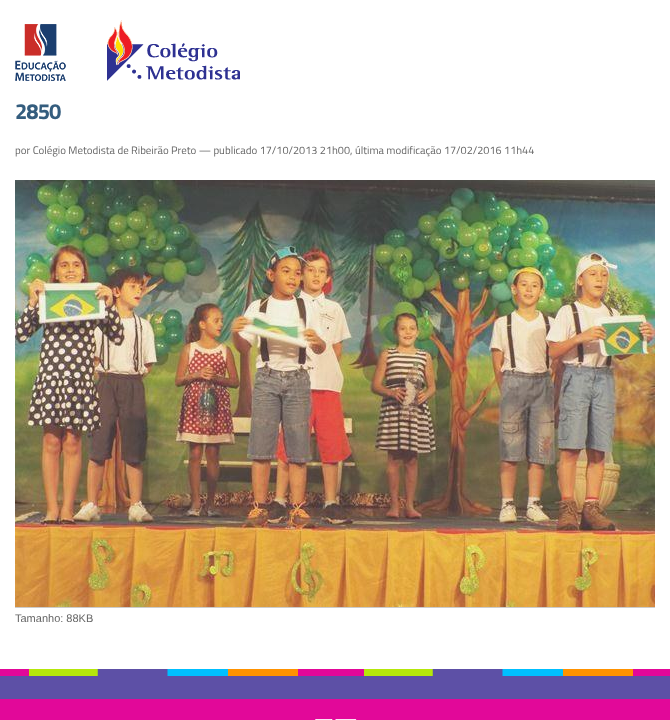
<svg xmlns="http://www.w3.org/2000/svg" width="670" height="720">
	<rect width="100%" height="100%" fill="#FFFFFF" />
	<image x="15" y="20" width="225" height="61" href="assets/img1.png" />
	<text x="15" y="119" font-family="Titillium Web" font-size="22" font-weight="700" letter-spacing="-1" fill="#345D7E">2850</text>
	<text x="15" y="154" font-family="Titillium Web" font-size="10.9" fill="#666666">por Colégio Metodista de Ribeirão Preto — publicado 17/10/2013 21h00, última modificação 17/02/2016 11h44</text>
	<rect x="15" y="607" width="640" height="1" fill="#CCCCCC" />
	<image x="15" y="180" width="640" height="427" href="assets/img2.png" />
	<text x="15" y="622" font-family="Liberation Sans" font-size="11" fill="#666666">Tamanho: 88KB</text>
	<rect x="0" y="676" width="670" height="23" fill="#5D50A6" />
	<image x="0" y="669" width="670" height="7" href="assets/img3.png" />
	<rect x="0" y="699" width="670" height="21" fill="#E20899" />
	<image x="315" y="719" width="42" height="1" href="assets/img4.png" />
</svg>
